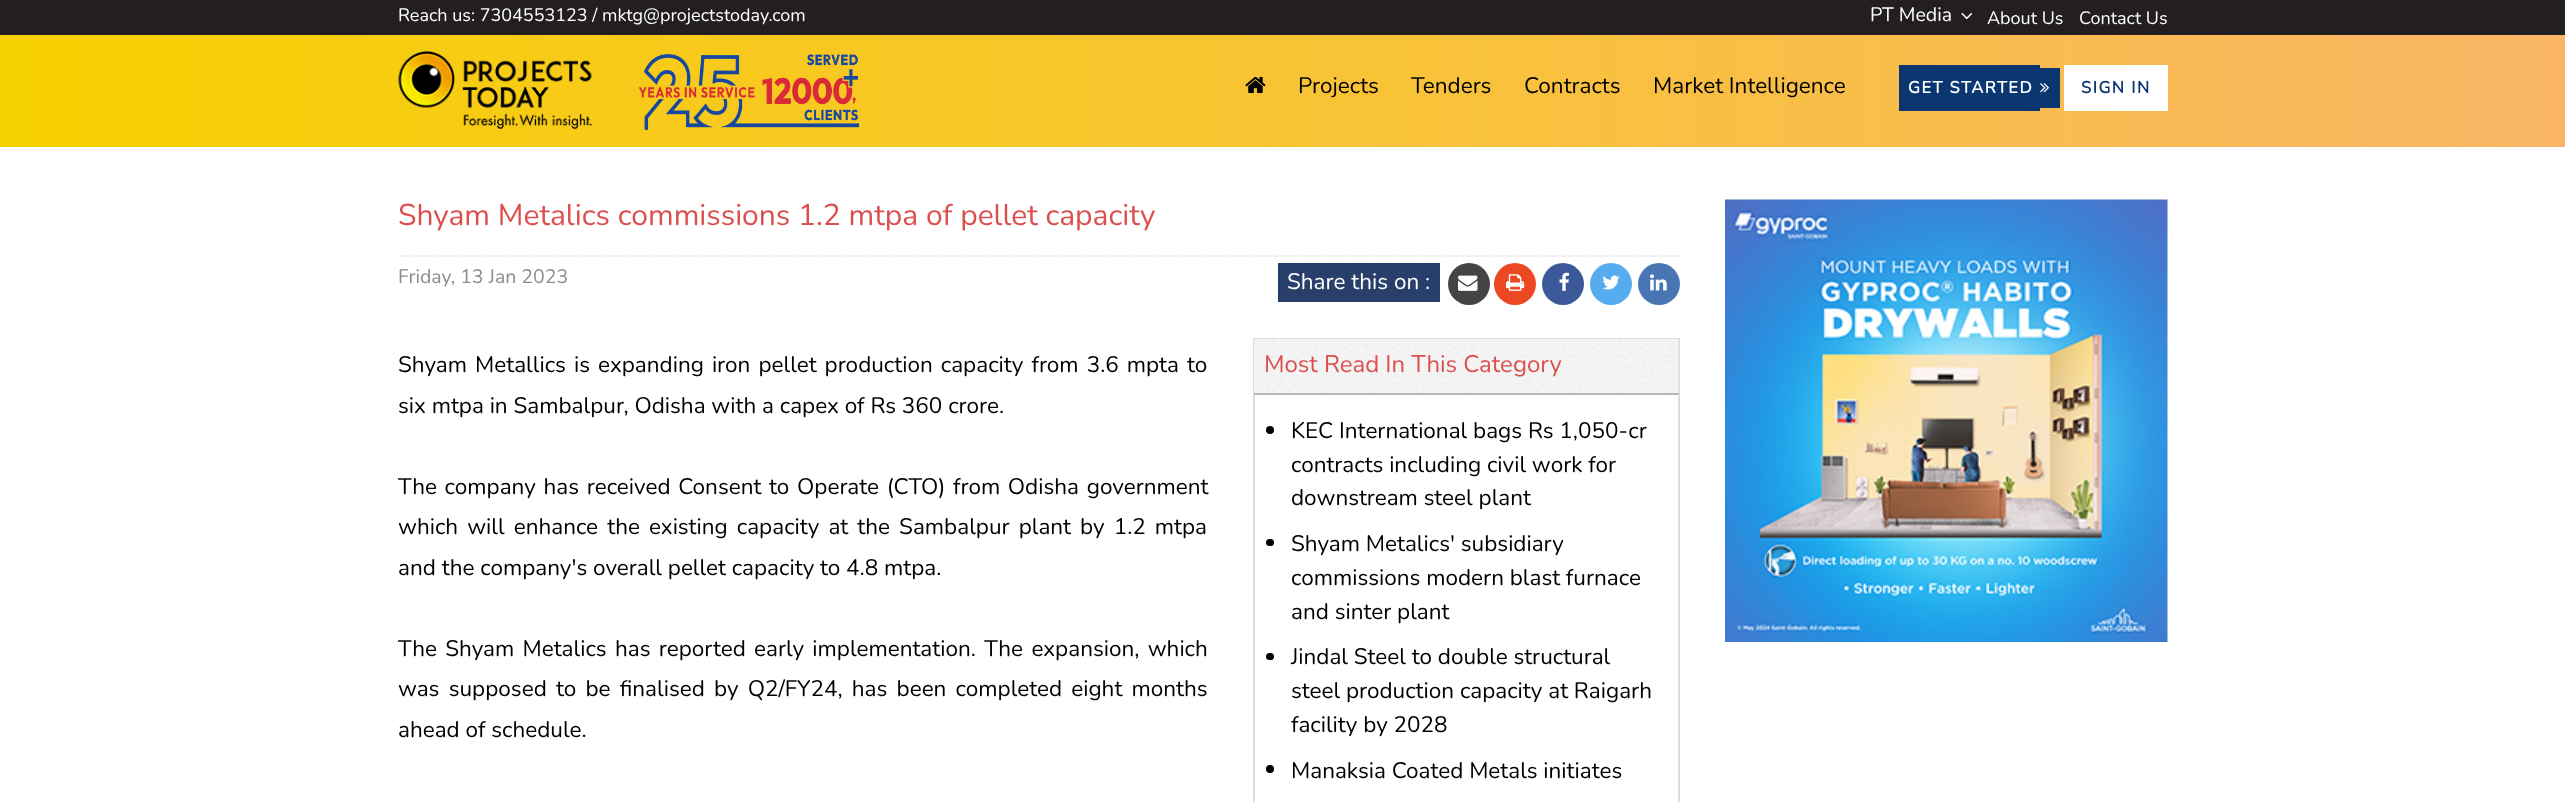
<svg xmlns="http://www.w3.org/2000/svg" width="2565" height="802">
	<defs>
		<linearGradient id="g1" gradientUnits="userSpaceOnUse" x1="0" y1="91" x2="2565" y2="91"><stop offset="0" stop-color="#F6D100" /><stop offset="1" stop-color="#FAB666" /></linearGradient>
	</defs>
	<rect width="100%" height="100%" fill="#FFFFFF" />
	<rect x="0" y="0" width="2565" height="35" fill="#231F20" />
	<text x="398" y="21" font-family="Nunito" font-size="18" fill="#FFFFFF">Reach us: 7304553123 / mktg@projectstoday.com</text>
	<text x="1870" y="21" font-family="Nunito" font-size="19.5" fill="#FFFFFF">PT Media</text>
	<image x="1961" y="12" width="12" height="8" href="assets/img1.png" />
	<g font-family="Nunito" font-size="18" fill="#FFFFFF">
		<text x="1987" y="24">About Us</text>
		<text x="2079" y="24">Contact Us</text>
	</g>
	<rect x="0" y="35" width="2565" height="112" fill="url(#g1)" />
	<image x="398" y="51" width="194" height="78" href="assets/img2.png" />
	<image x="639" y="54" width="221" height="76" href="assets/img3.png" />
	<image x="1245" y="76" width="21" height="17" href="assets/img4.png" />
	<g font-family="Nunito" font-size="22.5" fill="#000000">
		<text x="1298" y="93">Projects</text>
		<text x="1411" y="93">Tenders</text>
		<text x="1524" y="93">Contracts</text>
		<text x="1653" y="93">Market Intelligence</text>
	</g>
	<rect x="1899" y="65" width="141" height="46" fill="#0B3771" />
	<rect x="2040" y="68" width="20" height="40" fill="#0B3771" />
	<text x="1908" y="93" font-family="Nunito" font-size="16.5" font-weight="700" letter-spacing="1.5" fill="#FFFFFF">GET STARTED</text>
	<image x="2040" y="83" width="9" height="10" href="assets/img5.png" />
	<rect x="2064" y="65" width="104" height="46" fill="#FFFFFF" />
	<text x="2081" y="93" font-family="Nunito" font-size="16.5" font-weight="700" letter-spacing="1.5" fill="#0B3771">SIGN IN</text>
	<path d="M397.5 256H1680" fill="none" stroke="#DDDDDD" stroke-width="1.5" stroke-dasharray="1.5 1.5" />
	<text x="398" y="225" font-family="Nunito" font-size="30" fill="#DD4E4E">Shyam Metalics commissions 1.2 mtpa of pellet capacity</text>
	<text x="398" y="283" font-family="Nunito" font-size="19.5" fill="#8B8B8B">Friday, 13 Jan 2023</text>
	<rect x="1278" y="263" width="162" height="39" fill="#283E6B" />
	<text x="1287" y="289" font-family="Nunito" font-size="22.5" fill="#FFFFFF">Share this on :</text>
	<circle cx="1469" cy="284" r="21" fill="#444444" />
	<image x="1458" y="275" width="20" height="16" href="assets/img6.png" />
	<circle cx="1515" cy="284" r="21" fill="#EB4823" />
	<image x="1506" y="274" width="19" height="17" href="assets/img7.png" />
	<circle cx="1563" cy="284" r="21" fill="#3B5998" />
	<image x="1559" y="272" width="10" height="19" href="assets/img8.png" />
	<circle cx="1611" cy="284" r="21" fill="#55ACEE" />
	<image x="1602" y="275" width="18" height="15" href="assets/img9.png" />
	<circle cx="1659" cy="284" r="21" fill="#4875B4" />
	<image x="1650" y="274" width="17" height="17" href="assets/img10.png" />
	<g font-family="Nunito" font-size="22.5" fill="#000000">
		<text x="398" y="372" word-spacing="2.25">Shyam Metallics is expanding iron pellet production capacity from 3.6 mpta to</text>
		<text x="398" y="413">six mtpa in Sambalpur, Odisha with a capex of Rs 360 crore.</text>
		<text x="398" y="494" word-spacing="1.9">The company has received Consent to Operate (CTO) from Odisha government</text>
		<text x="398" y="534" word-spacing="3.25">which will enhance the existing capacity at the Sambalpur plant by 1.2 mtpa</text>
		<text x="398" y="575">and the company's overall pellet capacity to 4.8 mtpa.</text>
		<text x="398" y="656" word-spacing="2.5">The Shyam Metalics has reported early implementation. The expansion, which</text>
		<text x="398" y="696" word-spacing="3.4">was supposed to be finalised by Q2/FY24, has been completed eight months</text>
		<text x="398" y="737">ahead of schedule.</text>
	</g>
	<rect x="1254" y="339" width="425" height="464" fill="none" stroke="#DDDDDD" stroke-width="2" />
	<image x="1254" y="339" width="425" height="54" href="assets/img11.png" />
	<rect x="1254" y="393" width="425" height="2" fill="#B8B8B8" />
	<text x="1264" y="372" font-family="Nunito" font-size="24" fill="#DD4E4E">Most Read In This Category</text>
	<circle cx="1270" cy="430" r="4" fill="#000000" />
	<g font-family="Nunito" font-size="22.5" fill="#000000">
		<text x="1291" y="438">KEC International bags Rs 1,050-cr</text>
		<text x="1291" y="472">contracts including civil work for</text>
		<text x="1291" y="505">downstream steel plant</text>
	</g>
	<rect x="1266" y="539" width="8" height="7" rx="3.5" fill="#000000" />
	<g font-family="Nunito" font-size="22.5" fill="#000000">
		<text x="1291" y="551">Shyam Metalics' subsidiary</text>
		<text x="1291" y="585">commissions modern blast furnace</text>
		<text x="1291" y="619">and sinter plant</text>
	</g>
	<rect x="1266" y="653" width="8" height="7" rx="3.5" fill="#000000" />
	<g font-family="Nunito" font-size="22.5" fill="#000000">
		<text x="1291" y="664">Jindal Steel to double structural</text>
		<text x="1291" y="698">steel production capacity at Raigarh</text>
		<text x="1291" y="732">facility by 2028</text>
	</g>
	<circle cx="1270" cy="769" r="4" fill="#000000" />
	<text x="1291" y="778" font-family="Nunito" font-size="22.5" fill="#000000">Manaksia Coated Metals initiates</text>
	<image x="1725" y="199" width="443" height="443" href="assets/img12.png" />
</svg>
